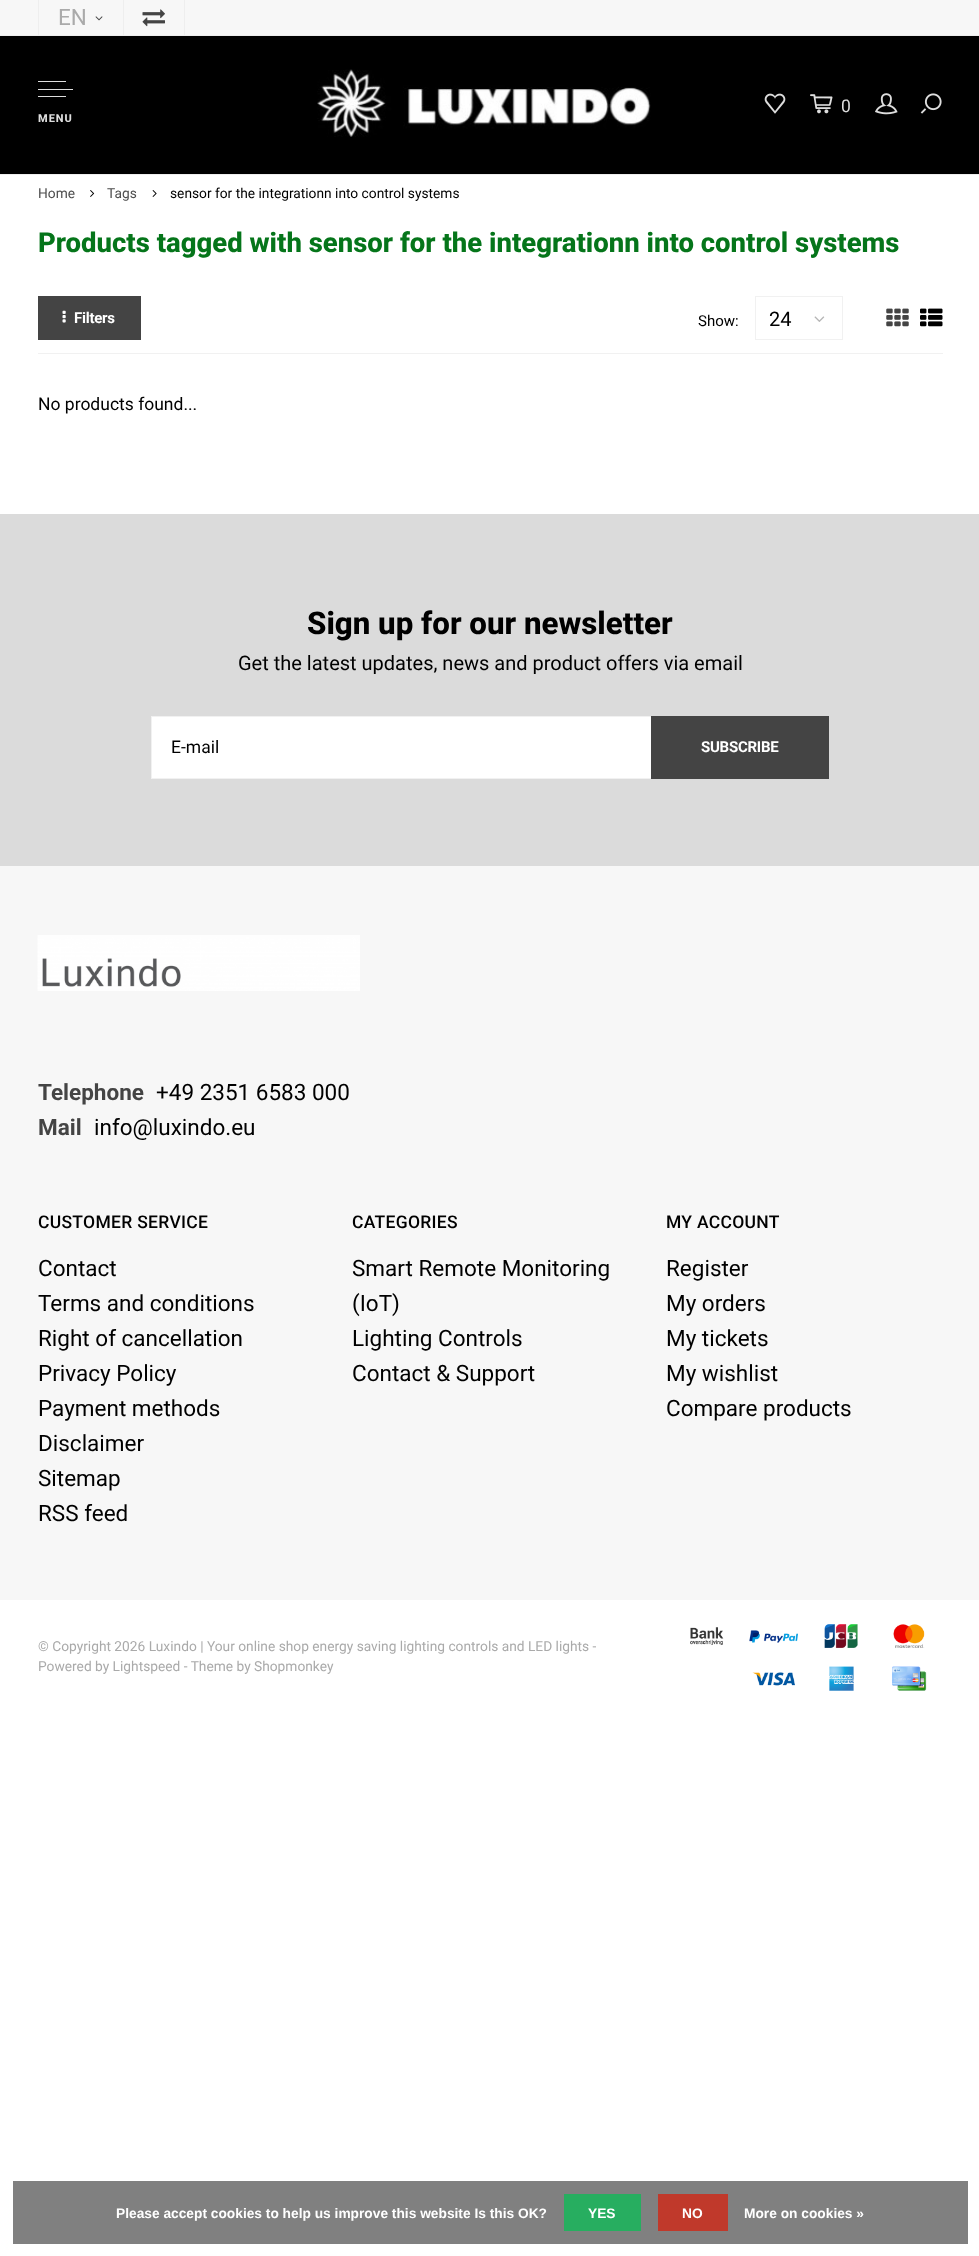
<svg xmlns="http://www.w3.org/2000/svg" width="979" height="2256">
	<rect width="100%" height="100%" fill="#FFFFFF" />
	<rect x="0" y="36" width="979" height="138" fill="#000000" />
	<rect x="0" y="0" width="979" height="35" fill="#F7F7F7" />
	<rect x="0" y="35" width="979" height="1" fill="#EEEEEE" />
	<rect x="123" y="0" width="1" height="35" fill="#EEEEEE" />
	<rect x="38" y="0" width="1" height="35" fill="#EEEEEE" />
	<text x="58" y="25" font-family="Roboto" font-size="22.5" fill="#AAAAAA">EN</text>
	<image x="95" y="16" width="8" height="5" href="assets/img1.png" />
	<rect x="184" y="0" width="1" height="35" fill="#EEEEEE" />
	<image x="142" y="9" width="23" height="18" href="assets/img2.png" />
	<rect x="0" y="174" width="979" height="1" fill="#EEEEEE" />
	<image x="317" y="69" width="334" height="68" href="assets/img3.png" />
	<image x="764" y="93" width="22" height="21" href="assets/img4.png" />
	<image x="810" y="94" width="23" height="20" href="assets/img5.png" />
	<text x="841" y="112" font-family="Roboto" font-size="17.5" fill="#DDDDDD">0</text>
	<image x="875" y="93" width="23" height="22" href="assets/img6.png" />
	<image x="920" y="93" width="22" height="21" href="assets/img7.png" />
	<rect x="38" y="81" width="28" height="1" fill="#DDDDDD" />
	<rect x="38" y="89" width="35" height="1" fill="#DDDDDD" />
	<rect x="38" y="96" width="28" height="1" fill="#DDDDDD" />
	<text x="38" y="122" font-family="Roboto" font-size="11" font-weight="800" letter-spacing="1" fill="#DDDDDD">MENU</text>
	<text x="38" y="198" font-family="Roboto" font-size="13.75" fill="#4D4D4D">Home</text>
	<image x="90" y="190" width="5" height="7" href="assets/img8.png" />
	<text x="107" y="198" font-family="Roboto" font-size="13.75" fill="#4D4D4D">Tags</text>
	<image x="152" y="190" width="5" height="7" href="assets/img9.png" />
	<text x="170" y="198" font-family="Roboto" font-size="13.75" fill="#000000">sensor for the integrationn into control systems</text>
	<text x="38" y="252" font-family="Roboto" font-size="27.5" font-weight="800" fill="#05751A">Products tagged with sensor for the integrationn into control systems</text>
	<rect x="38" y="353" width="905" height="1" fill="#F1F1F1" />
	<rect x="38" y="296" width="103" height="44" fill="#444444" />
	<image x="62" y="310" width="4" height="13" href="assets/img10.png" />
	<text x="74" y="323" font-family="Roboto" font-size="15" font-weight="700" letter-spacing="-0.25" fill="#FFFFFF">Filters</text>
	<text x="698" y="326" font-family="Roboto" font-size="15" fill="#000000">Show:</text>
	<rect x="755.5" y="296.5" width="87" height="43" fill="none" stroke="#F1F1F1" />
	<text x="769" y="326" font-family="Roboto" font-size="20" fill="#000000">24</text>
	<image x="814" y="316" width="11" height="6" href="assets/img11.png" />
	<image x="886" y="308" width="23" height="19" href="assets/img12.png" />
	<image x="920" y="308" width="23" height="19" href="assets/img13.png" />
	<text x="38" y="410" font-family="Roboto" font-size="17.5" fill="#000000">No products found...</text>
	<rect x="0" y="514" width="979" height="352" fill="#DBDBDB" />
	<text x="307" y="634" font-family="Roboto" font-size="31.25" font-weight="800" fill="#000000">Sign up for our newsletter</text>
	<text x="238" y="670" font-family="Roboto" font-size="20" fill="#000000">Get the latest updates, news and product offers via email</text>
	<rect x="152" y="717" width="499" height="61" fill="#FFFFFF" />
	<rect x="151" y="716" width="500" height="1" fill="#F1F1F1" />
	<rect x="151" y="778" width="500" height="1" fill="#F1F1F1" />
	<rect x="151" y="716" width="1" height="63" fill="#F1F1F1" />
	<text x="171" y="753" font-family="Roboto" font-size="17.5" fill="#000000">E-mail</text>
	<rect x="651" y="716" width="178" height="63" fill="#444444" />
	<text x="701" y="752" font-family="Roboto" font-size="15" font-weight="700" letter-spacing="-0.25" fill="#FFFFFF">SUBSCRIBE</text>
	<rect x="0" y="866" width="979" height="734" fill="#F7F7F7" />
	<image x="37" y="935" width="323" height="56" href="assets/img14.png" />
	<text x="38" y="1100" font-family="Roboto" font-size="22.5" font-weight="700" fill="#444444">Telephone</text>
	<text x="156" y="1100" font-family="Roboto" font-size="22.5" fill="#000000">+49 2351 6583 000</text>
	<text x="38" y="1135" font-family="Roboto" font-size="22.5" font-weight="700" fill="#444444">Mail</text>
	<text x="94" y="1135" font-family="Roboto" font-size="22.5" fill="#000000">info@luxindo.eu</text>
	<text x="38" y="1228" font-family="Roboto" font-size="17.5" font-weight="500" letter-spacing="0.3" fill="#000000">CUSTOMER SERVICE</text>
	<g font-family="Roboto" font-size="22.5" fill="#000000">
		<text x="38" y="1276">Contact</text>
		<text x="38" y="1311">Terms and conditions</text>
		<text x="38" y="1346">Right of cancellation</text>
		<text x="38" y="1381">Privacy Policy</text>
		<text x="38" y="1416">Payment methods</text>
		<text x="38" y="1451">Disclaimer</text>
		<text x="38" y="1486">Sitemap</text>
		<text x="38" y="1521">RSS feed</text>
	</g>
	<text x="352" y="1228" font-family="Roboto" font-size="17.5" font-weight="500" letter-spacing="0.3" fill="#000000">CATEGORIES</text>
	<g font-family="Roboto" font-size="22.5" fill="#000000">
		<text x="352" y="1276">Smart Remote Monitoring</text>
		<text x="352" y="1311">(IoT)</text>
		<text x="352" y="1346">Lighting Controls</text>
		<text x="352" y="1381">Contact &amp; Support</text>
	</g>
	<text x="666" y="1228" font-family="Roboto" font-size="17.5" font-weight="500" letter-spacing="0.3" fill="#000000">MY ACCOUNT</text>
	<g font-family="Roboto" font-size="22.5" fill="#000000">
		<text x="666" y="1276">Register</text>
		<text x="666" y="1311">My orders</text>
		<text x="666" y="1346">My tickets</text>
		<text x="666" y="1381">My wishlist</text>
		<text x="666" y="1416">Compare products</text>
	</g>
	<g font-family="Roboto" font-size="13.75" fill="#AAAAAA">
		<text x="38" y="1651">© Copyright 2026 Luxindo | Your online shop energy saving lighting controls and LED lights -</text>
		<text x="38" y="1671">Powered by Lightspeed - Theme by Shopmonkey</text>
	</g>
	<image x="690" y="1627" width="34" height="18" href="assets/img15.png" />
	<image x="749" y="1630" width="49" height="13" href="assets/img16.png" />
	<image x="824" y="1624" width="34" height="24" href="assets/img17.png" />
	<image x="893" y="1624" width="32" height="24" href="assets/img18.png" />
	<image x="752" y="1672" width="43" height="14" href="assets/img19.png" />
	<image x="829" y="1666" width="25" height="25" href="assets/img20.png" />
	<image x="892" y="1666" width="35" height="25" href="assets/img21.png" />
	<rect x="13" y="2181" width="955" height="63" fill="#808080" />
	<text x="116" y="2218" font-family="Liberation Sans" font-size="13.75" font-weight="700" fill="#FFFFFF">Please accept cookies to help us improve this website Is this OK?</text>
	<rect x="564" y="2194" width="77" height="37" fill="#27AE60" />
	<text x="588" y="2218" font-family="Liberation Sans" font-size="13.75" font-weight="700" fill="#FFFFFF">YES</text>
	<rect x="658" y="2194" width="70" height="37" fill="#C0392B" />
	<g font-family="Liberation Sans" font-size="13.75" font-weight="700" fill="#FFFFFF">
		<text x="682" y="2218">NO</text>
		<text x="744" y="2218">More on cookies »</text>
	</g>
</svg>
